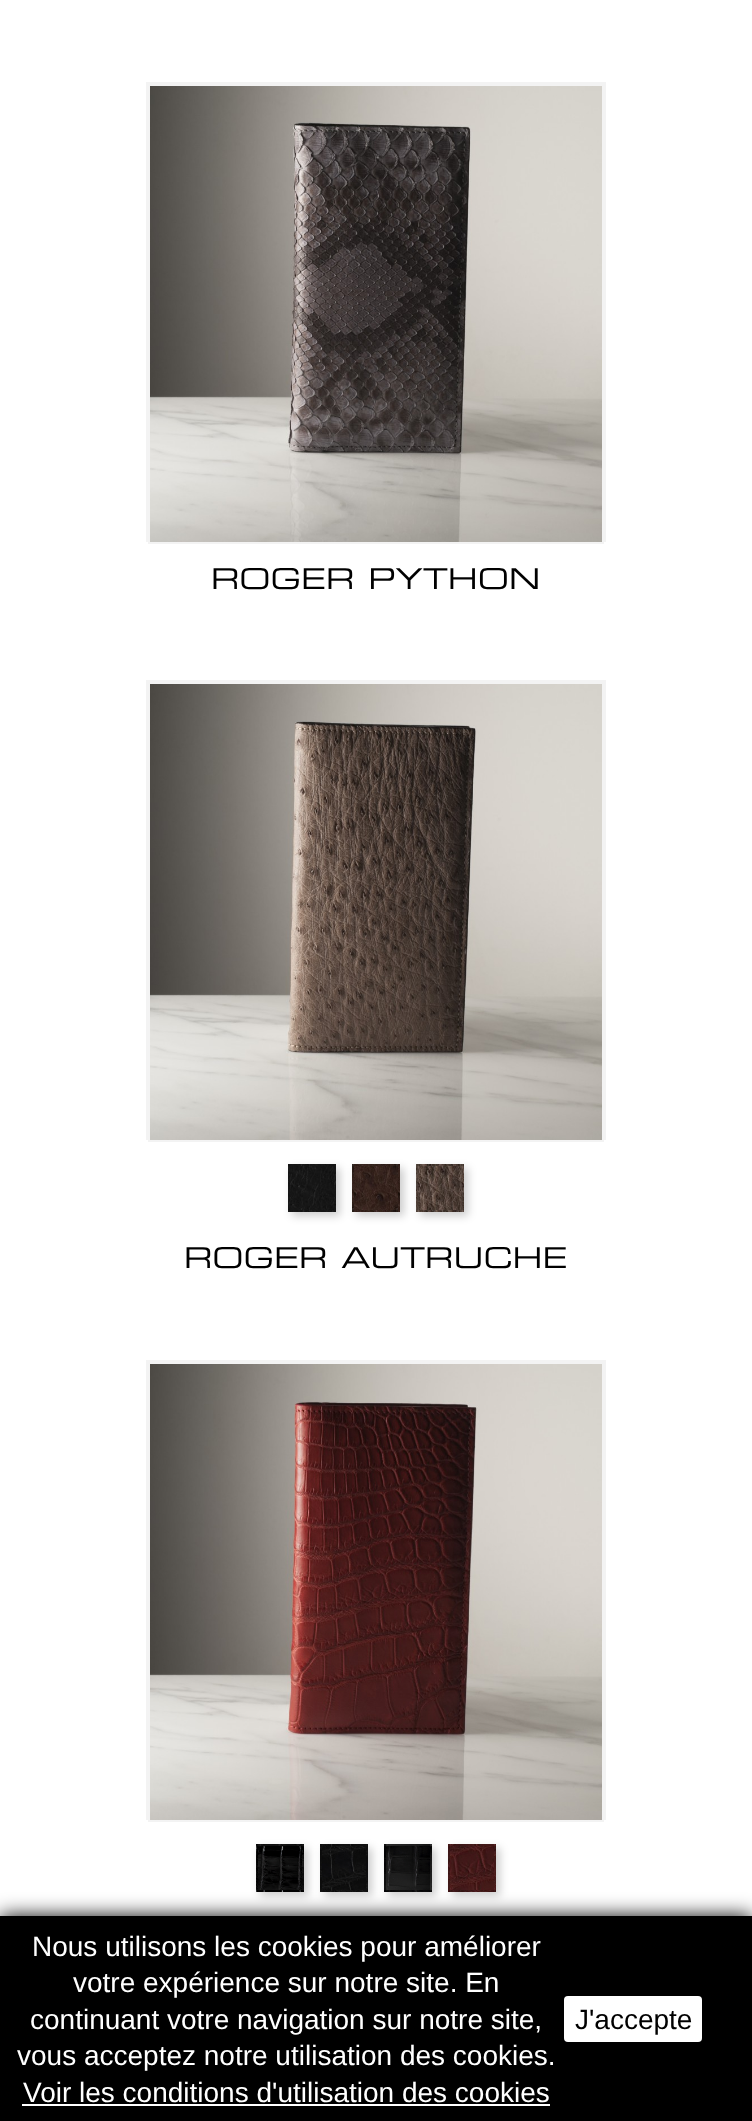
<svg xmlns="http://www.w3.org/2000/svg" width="752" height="2121">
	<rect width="100%" height="100%" fill="#FFFFFF" />
	<rect x="147" y="83" width="458" height="458" fill="none" stroke="#F3F3F3" stroke-width="2" />
	<rect x="149" y="85" width="454" height="458" fill="none" stroke="#F3F3F3" stroke-width="2" />
	<image x="150" y="86" width="452" height="456" href="assets/img1.png" />
	<text x="211" y="589" font-family="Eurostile" font-size="28.75" fill="#000000">ROGER PYTHON</text>
	<rect x="147" y="681" width="458" height="458" fill="none" stroke="#F3F3F3" stroke-width="2" />
	<rect x="149" y="683" width="454" height="458" fill="none" stroke="#F3F3F3" stroke-width="2" />
	<image x="150" y="684" width="452" height="456" href="assets/img2.png" />
	<rect x="292" y="1168" width="48" height="48" fill="#000000" fill-opacity="0.2" filter="blur(4px)" />
	<image x="288" y="1164" width="48" height="48" href="assets/img3.png" />
	<rect x="356" y="1168" width="48" height="48" fill="#000000" fill-opacity="0.2" filter="blur(4px)" />
	<image x="352" y="1164" width="48" height="48" href="assets/img4.png" />
	<rect x="353" y="1165" width="46" height="46" fill="none" stroke="#000000" stroke-opacity="0.05" stroke-width="2" />
	<rect x="420" y="1168" width="48" height="48" fill="#000000" fill-opacity="0.2" filter="blur(4px)" />
	<image x="416" y="1164" width="48" height="48" href="assets/img5.png" />
	<rect x="417" y="1165" width="46" height="46" fill="none" stroke="#000000" stroke-opacity="0.05" stroke-width="2" />
	<text x="184" y="1268" font-family="Eurostile" font-size="28.75" fill="#000000">ROGER AUTRUCHE</text>
	<rect x="147" y="1361" width="458" height="458" fill="none" stroke="#F3F3F3" stroke-width="2" />
	<rect x="149" y="1363" width="454" height="458" fill="none" stroke="#F3F3F3" stroke-width="2" />
	<image x="150" y="1364" width="452" height="456" href="assets/img6.png" />
	<rect x="260" y="1848" width="48" height="48" fill="#000000" fill-opacity="0.2" filter="blur(4px)" />
	<image x="256" y="1844" width="48" height="48" href="assets/img7.png" />
	<rect x="257" y="1845" width="46" height="46" fill="none" stroke="#000000" stroke-opacity="0.05" stroke-width="2" />
	<rect x="324" y="1848" width="48" height="48" fill="#000000" fill-opacity="0.2" filter="blur(4px)" />
	<image x="320" y="1844" width="48" height="48" href="assets/img8.png" />
	<rect x="388" y="1848" width="48" height="48" fill="#000000" fill-opacity="0.2" filter="blur(4px)" />
	<image x="384" y="1844" width="48" height="48" href="assets/img9.png" />
	<rect x="452" y="1848" width="48" height="48" fill="#000000" fill-opacity="0.2" filter="blur(4px)" />
	<image x="448" y="1844" width="48" height="48" href="assets/img10.png" />
	<rect x="449" y="1845" width="46" height="46" fill="none" stroke="#000000" stroke-opacity="0.05" stroke-width="2" />
	<rect x="0" y="1916" width="752" height="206" fill="#000000" filter="blur(10px)" />
	<rect x="0" y="1916" width="752" height="205" fill="#000000" />
	<g font-family="Liberation Sans" font-size="28" fill="#FFFFFF">
		<text x="32" y="1956">Nous utilisons les cookies pour améliorer</text>
		<text x="73" y="1992">votre expérience sur notre site. En</text>
		<text x="30" y="2029">continuant votre navigation sur notre site,</text>
		<text x="17" y="2065">vous acceptez notre utilisation des cookies.</text>
		<text x="23" y="2102">Voir les conditions d'utilisation des cookies</text>
	</g>
	<rect x="22" y="2104" width="528" height="2" fill="#FFFFFF" />
	<rect x="564" y="1996" width="138" height="46" rx="4" fill="#FFFFFF" />
	<text x="575" y="2029" font-family="Liberation Sans" font-size="28" fill="#000000">J'accepte</text>
</svg>
